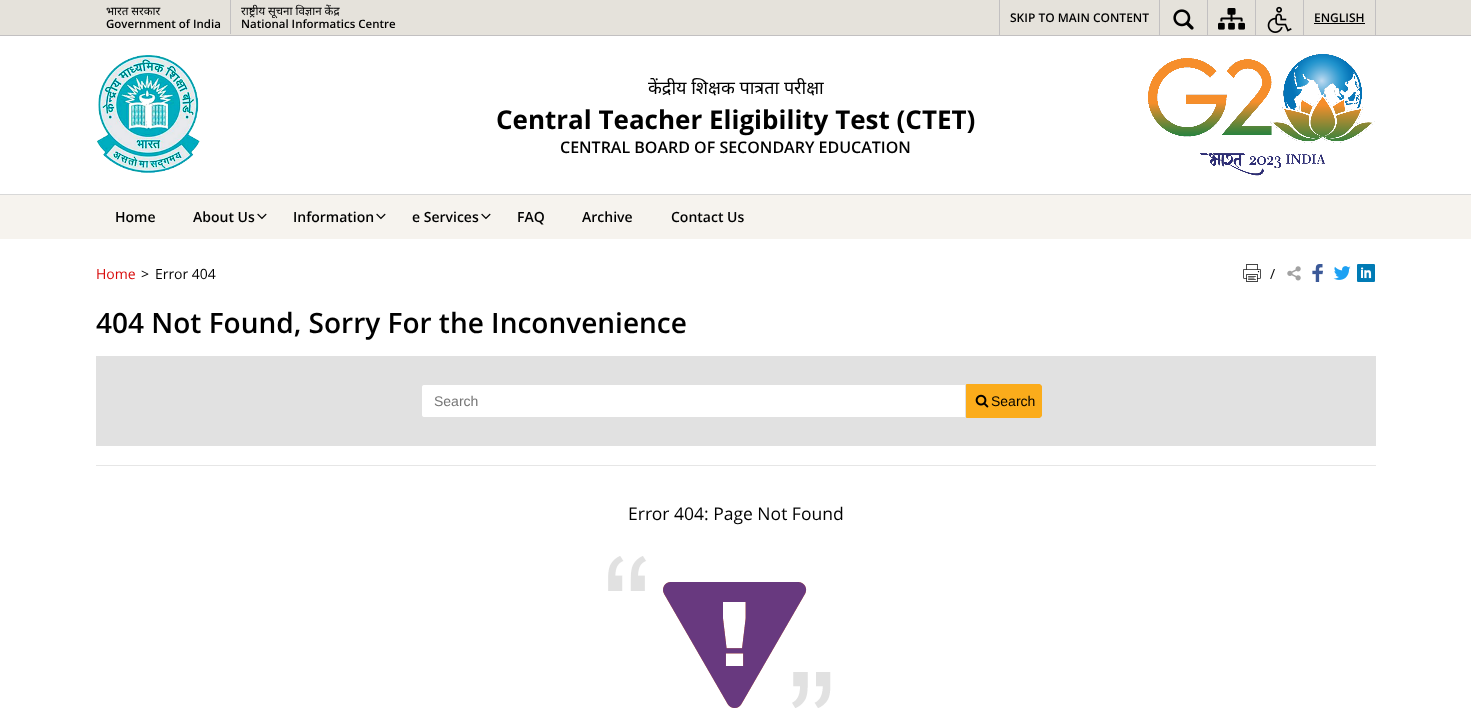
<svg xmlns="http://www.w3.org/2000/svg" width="1471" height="722">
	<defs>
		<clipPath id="clip1"><rect x="96" y="356" width="1280" height="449" /></clipPath>
	</defs>
	<rect width="100%" height="100%" fill="#FFFFFF" />
	<rect x="0" y="0" width="1471" height="35" fill="#E5E2DB" />
	<rect x="0" y="35" width="1471" height="1" fill="#C2C0C1" />
	<rect x="230" y="0" width="1" height="34" fill="#C2C0C1" />
	<text x="106" y="15" font-family="Noto Sans" font-size="11.5" fill="#000000">भारत सरकार</text>
	<text x="106" y="28" font-family="Open Sans" font-size="11.5" font-weight="600" fill="#000000">Government of India</text>
	<text x="241" y="15" font-family="Noto Sans" font-size="11.5" fill="#000000">राष्ट्रीय सूचना विज्ञान केंद्र</text>
	<text x="241" y="28" font-family="Open Sans" font-size="11.5" font-weight="600" fill="#000000">National Informatics Centre</text>
	<rect x="999" y="0" width="1" height="35" fill="#C2C0C1" />
	<text x="1010" y="22" font-family="Open Sans" font-size="12" font-weight="600" fill="#000000">SKIP TO MAIN CONTENT</text>
	<rect x="1159" y="0" width="1" height="35" fill="#C2C0C1" />
	<image x="1173" y="9" width="21" height="21" href="assets/img1.png" />
	<rect x="1207" y="0" width="1" height="35" fill="#C2C0C1" />
	<image x="1218" y="8" width="27" height="22" href="assets/img2.png" />
	<rect x="1255" y="0" width="1" height="35" fill="#C2C0C1" />
	<image x="1267" y="6" width="25" height="27" href="assets/img3.png" />
	<rect x="1375" y="0" width="1" height="35" fill="#C2C0C1" />
	<rect x="1303" y="0" width="1" height="35" fill="#C2C0C1" />
	<text x="1314" y="22" font-family="Open Sans" font-size="12" font-weight="600" fill="#000000">ENGLISH</text>
	<rect x="1314" y="23" width="51" height="1" fill="#000000" />
	<image x="97" y="55" width="103" height="118" href="assets/img4.png" />
	<text x="648" y="94" font-family="Noto Sans" font-size="18" fill="#000000">केंद्रीय शिक्षक पात्रता परीक्षा</text>
	<text x="496" y="129" font-family="Open Sans" font-size="26" font-weight="700" fill="#000000">Central Teacher Eligibility Test (CTET)</text>
	<text x="560" y="153" font-family="Open Sans" font-size="16" font-weight="600" fill="#000000">CENTRAL BOARD OF SECONDARY EDUCATION</text>
	<image x="1148" y="54" width="227" height="122" href="assets/img5.png" />
	<rect x="0" y="195" width="1471" height="44" fill="#F6F3EE" />
	<rect x="0" y="194" width="1471" height="1" fill="#D8D8D8" />
	<g font-family="Open Sans" font-size="14" font-weight="600" fill="#000000">
		<text x="115" y="222">Home</text>
		<text x="193" y="222">About Us</text>
	</g>
	<image x="257" y="213" width="10" height="7" href="assets/img6.png" />
	<text x="293" y="222" font-family="Open Sans" font-size="14" font-weight="600" fill="#000000">Information</text>
	<image x="376" y="213" width="10" height="7" href="assets/img6.png" />
	<text x="412" y="222" font-family="Open Sans" font-size="14" font-weight="600" fill="#000000">e Services</text>
	<image x="481" y="213" width="10" height="7" href="assets/img6.png" />
	<g font-family="Open Sans" font-size="14" font-weight="600" fill="#000000">
		<text x="517" y="222">FAQ</text>
		<text x="582" y="222">Archive</text>
		<text x="671" y="222">Contact Us</text>
	</g>
	<text x="96" y="279" font-family="Open Sans" font-size="14" fill="#D80808">Home</text>
	<g font-family="Open Sans" font-size="14" fill="#000000">
		<text x="141" y="279">&gt;</text>
		<text x="155" y="279">Error 404</text>
	</g>
	<image x="1243" y="264" width="18" height="18" href="assets/img7.png" />
	<text x="1270" y="279" font-family="Open Sans" font-size="14" fill="#000000">/</text>
	<image x="1287" y="266" width="14" height="15" href="assets/img8.png" />
	<image x="1312" y="264" width="11" height="18" href="assets/img9.png" />
	<image x="1333" y="266" width="18" height="14" href="assets/img10.png" />
	<image x="1357" y="264" width="18" height="18" href="assets/img11.png" />
	<text x="96" y="333" font-family="Open Sans" font-size="28" font-weight="600" fill="#000000">404 Not Found, Sorry For the Inconvenience</text>
	<rect x="96" y="356" width="1280" height="90" fill="#E1E1E1" />
	<path d="M424 384.5H965.5V417.5H424C422.5 417.5 421.5 416.5 421.5 415V387C421.5 385.5 422.5 384.5 424 384.5Z" fill="#FFFFFF" stroke="#E1E1E1" />
	<text x="434" y="406" font-family="Liberation Sans" font-size="14" fill="#757575">Search</text>
	<path d="M966.5 384.5H1039C1040.5 384.5 1041.5 385.5 1041.5 387V415C1041.5 416.5 1040.5 417.5 1039 417.5H966.5Z" fill="#FBAC1B" stroke="#FBAC1B" />
	<image x="975" y="394" width="14" height="14" href="assets/img12.png" />
	<text x="991" y="406" font-family="Liberation Sans" font-size="14" fill="#000000">Search</text>
	<g clip-path="url(#clip1)">
		<rect x="95.5" y="465.5" width="1281" height="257" fill="none" stroke="#E6E6E6" />
	</g>
	<text x="628" y="520" font-family="Open Sans" font-size="17.5" fill="#000000">Error 404: Page Not Found</text>
	<image x="608" y="556" width="223" height="152" href="assets/img13.png" />
</svg>
